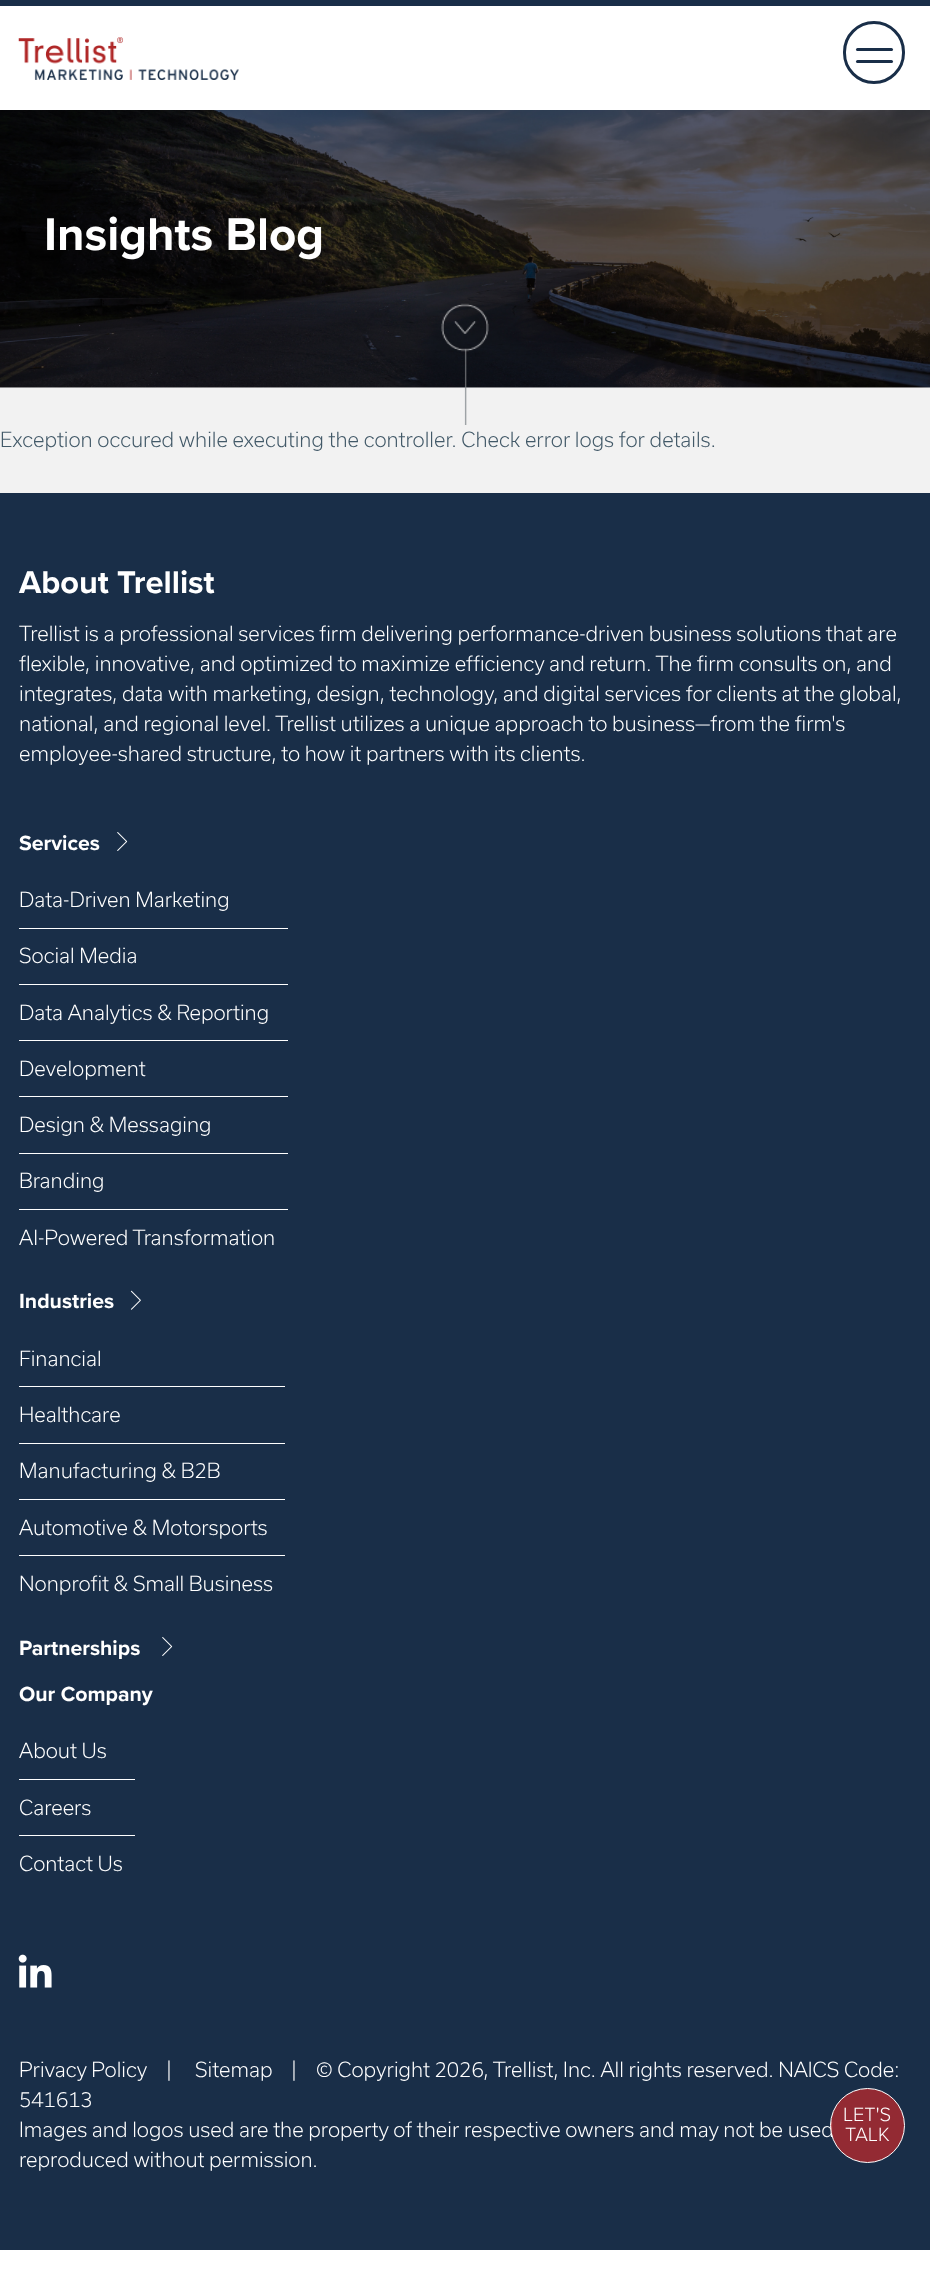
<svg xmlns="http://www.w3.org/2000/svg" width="930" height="2275">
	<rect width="100%" height="100%" fill="#FFFFFF" />
	<image x="0" y="110" width="930" height="278" href="assets/img1.png" />
	<text x="44" y="250" font-family="Proxima Nova" font-size="47.5" font-weight="700" fill="#FFFFFF">Insights Blog</text>
	<rect x="0" y="388" width="930" height="105" fill="#F2F2F2" />
	<image x="441" y="303" width="48" height="122" href="assets/img2.png" />
	<text x="0" y="447" font-family="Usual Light" font-size="20" font-weight="300" fill="#425968">Exception occured while executing the controller. Check error logs for details.</text>
	<rect x="0" y="493" width="930" height="1757" fill="#192E48" />
	<text x="19" y="593" font-family="Proxima Nova" font-size="32.5" font-weight="700" fill="#FFFFFF">About Trellist</text>
	<g font-family="Usual Light" font-size="20" font-weight="300" fill="#FFFFFF">
		<text x="19" y="641">Trellist is a professional services firm delivering performance-driven business solutions that are</text>
		<text x="19" y="671">flexible, innovative, and optimized to maximize efficiency and return. The firm consults on, and</text>
		<text x="19" y="701">integrates, data with marketing, design, technology, and digital services for clients at the global,</text>
		<text x="19" y="731">national, and regional level. Trellist utilizes a unique approach to business—from the firm's</text>
		<text x="19" y="761">employee-shared structure, to how it partners with its clients.</text>
	</g>
	<text x="19" y="850" font-family="Proxima Nova" font-size="21.25" font-weight="700" fill="#FFFFFF">Services</text>
	<image x="117" y="832" width="11" height="19" href="assets/img3.png" />
	<rect x="19" y="928" width="269" height="1" fill="#FFFFFF" />
	<text x="19" y="907" font-family="Usual Light" font-size="20" font-weight="300" fill="#FFFFFF">Data-Driven Marketing</text>
	<rect x="19" y="984" width="269" height="1" fill="#FFFFFF" />
	<text x="19" y="963" font-family="Usual Light" font-size="20" font-weight="300" fill="#FFFFFF">Social Media</text>
	<rect x="19" y="1040" width="269" height="1" fill="#FFFFFF" />
	<text x="19" y="1020" font-family="Usual Light" font-size="20" font-weight="300" fill="#FFFFFF">Data Analytics &amp; Reporting</text>
	<rect x="19" y="1096" width="269" height="1" fill="#FFFFFF" />
	<text x="19" y="1076" font-family="Usual Light" font-size="20" font-weight="300" fill="#FFFFFF">Development</text>
	<rect x="19" y="1153" width="269" height="1" fill="#FFFFFF" />
	<text x="19" y="1132" font-family="Usual Light" font-size="20" font-weight="300" fill="#FFFFFF">Design &amp; Messaging</text>
	<rect x="19" y="1209" width="269" height="1" fill="#FFFFFF" />
	<g font-family="Usual Light" font-size="20" font-weight="300" fill="#FFFFFF">
		<text x="19" y="1188">Branding</text>
		<text x="19" y="1245">AI-Powered Transformation</text>
	</g>
	<text x="19" y="1308" font-family="Proxima Nova" font-size="21.25" font-weight="700" fill="#FFFFFF">Industries</text>
	<image x="130" y="1290" width="11" height="20" href="assets/img4.png" />
	<rect x="19" y="1386" width="266" height="1" fill="#FFFFFF" />
	<text x="19" y="1366" font-family="Usual Light" font-size="20" font-weight="300" fill="#FFFFFF">Financial</text>
	<rect x="19" y="1443" width="266" height="1" fill="#FFFFFF" />
	<text x="19" y="1422" font-family="Usual Light" font-size="20" font-weight="300" fill="#FFFFFF">Healthcare</text>
	<rect x="19" y="1499" width="266" height="1" fill="#FFFFFF" />
	<text x="19" y="1478" font-family="Usual Light" font-size="20" font-weight="300" fill="#FFFFFF">Manufacturing &amp; B2B</text>
	<rect x="19" y="1555" width="266" height="1" fill="#FFFFFF" />
	<g font-family="Usual Light" font-size="20" font-weight="300" fill="#FFFFFF">
		<text x="19" y="1535">Automotive &amp; Motorsports</text>
		<text x="19" y="1591">Nonprofit &amp; Small Business</text>
	</g>
	<text x="19" y="1655" font-family="Proxima Nova" font-size="21.25" font-weight="700" fill="#FFFFFF">Partnerships</text>
	<image x="162" y="1637" width="11" height="19" href="assets/img3.png" />
	<text x="19" y="1701" font-family="Proxima Nova" font-size="21.25" font-weight="700" fill="#FFFFFF">Our Company</text>
	<rect x="19" y="1779" width="116" height="1" fill="#FFFFFF" />
	<text x="19" y="1758" font-family="Usual Light" font-size="20" font-weight="300" fill="#FFFFFF">About Us</text>
	<rect x="19" y="1835" width="116" height="1" fill="#FFFFFF" />
	<g font-family="Usual Light" font-size="20" font-weight="300" fill="#FFFFFF">
		<text x="19" y="1815">Careers</text>
		<text x="19" y="1871">Contact Us</text>
	</g>
	<image x="18" y="1954" width="34" height="34" href="assets/img5.png" />
	<g font-family="Usual Light" font-size="20" font-weight="300" fill="#FFFFFF">
		<text x="19" y="2077">Privacy Policy</text>
		<text x="166" y="2077">|</text>
		<text x="195" y="2077">Sitemap</text>
		<text x="291" y="2077">|</text>
		<text x="316" y="2077">© Copyright 2026, Trellist, Inc. All rights reserved. NAICS Code:</text>
		<text x="19" y="2107">541613</text>
		<text x="19" y="2137">Images and logos used are the property of their respective owners and may not be used</text>
		<text x="19" y="2167">reproduced without permission.</text>
	</g>
	<rect x="0" y="0" width="930" height="6" fill="#192E48" />
	<image x="18" y="37" width="221" height="43" href="assets/img6.png" />
	<rect x="844.5" y="22.5" width="59" height="60" rx="29.5" fill="none" stroke="#192E48" stroke-width="3" />
	<rect x="856" y="48" width="37" height="3" rx="1.5" fill="#192E48" />
	<rect x="856" y="60" width="37" height="3" rx="1.5" fill="#192E48" />
	<circle cx="867.5" cy="2125.5" r="37" fill="#B2292E" fill-opacity="0.8" stroke="#FFFFFF" />
	<g font-family="Proxima Nova" font-size="20" font-weight="300" fill="#FFFFFF">
		<text x="843" y="2121">LET'S</text>
		<text x="845" y="2141">TALK</text>
	</g>
</svg>
